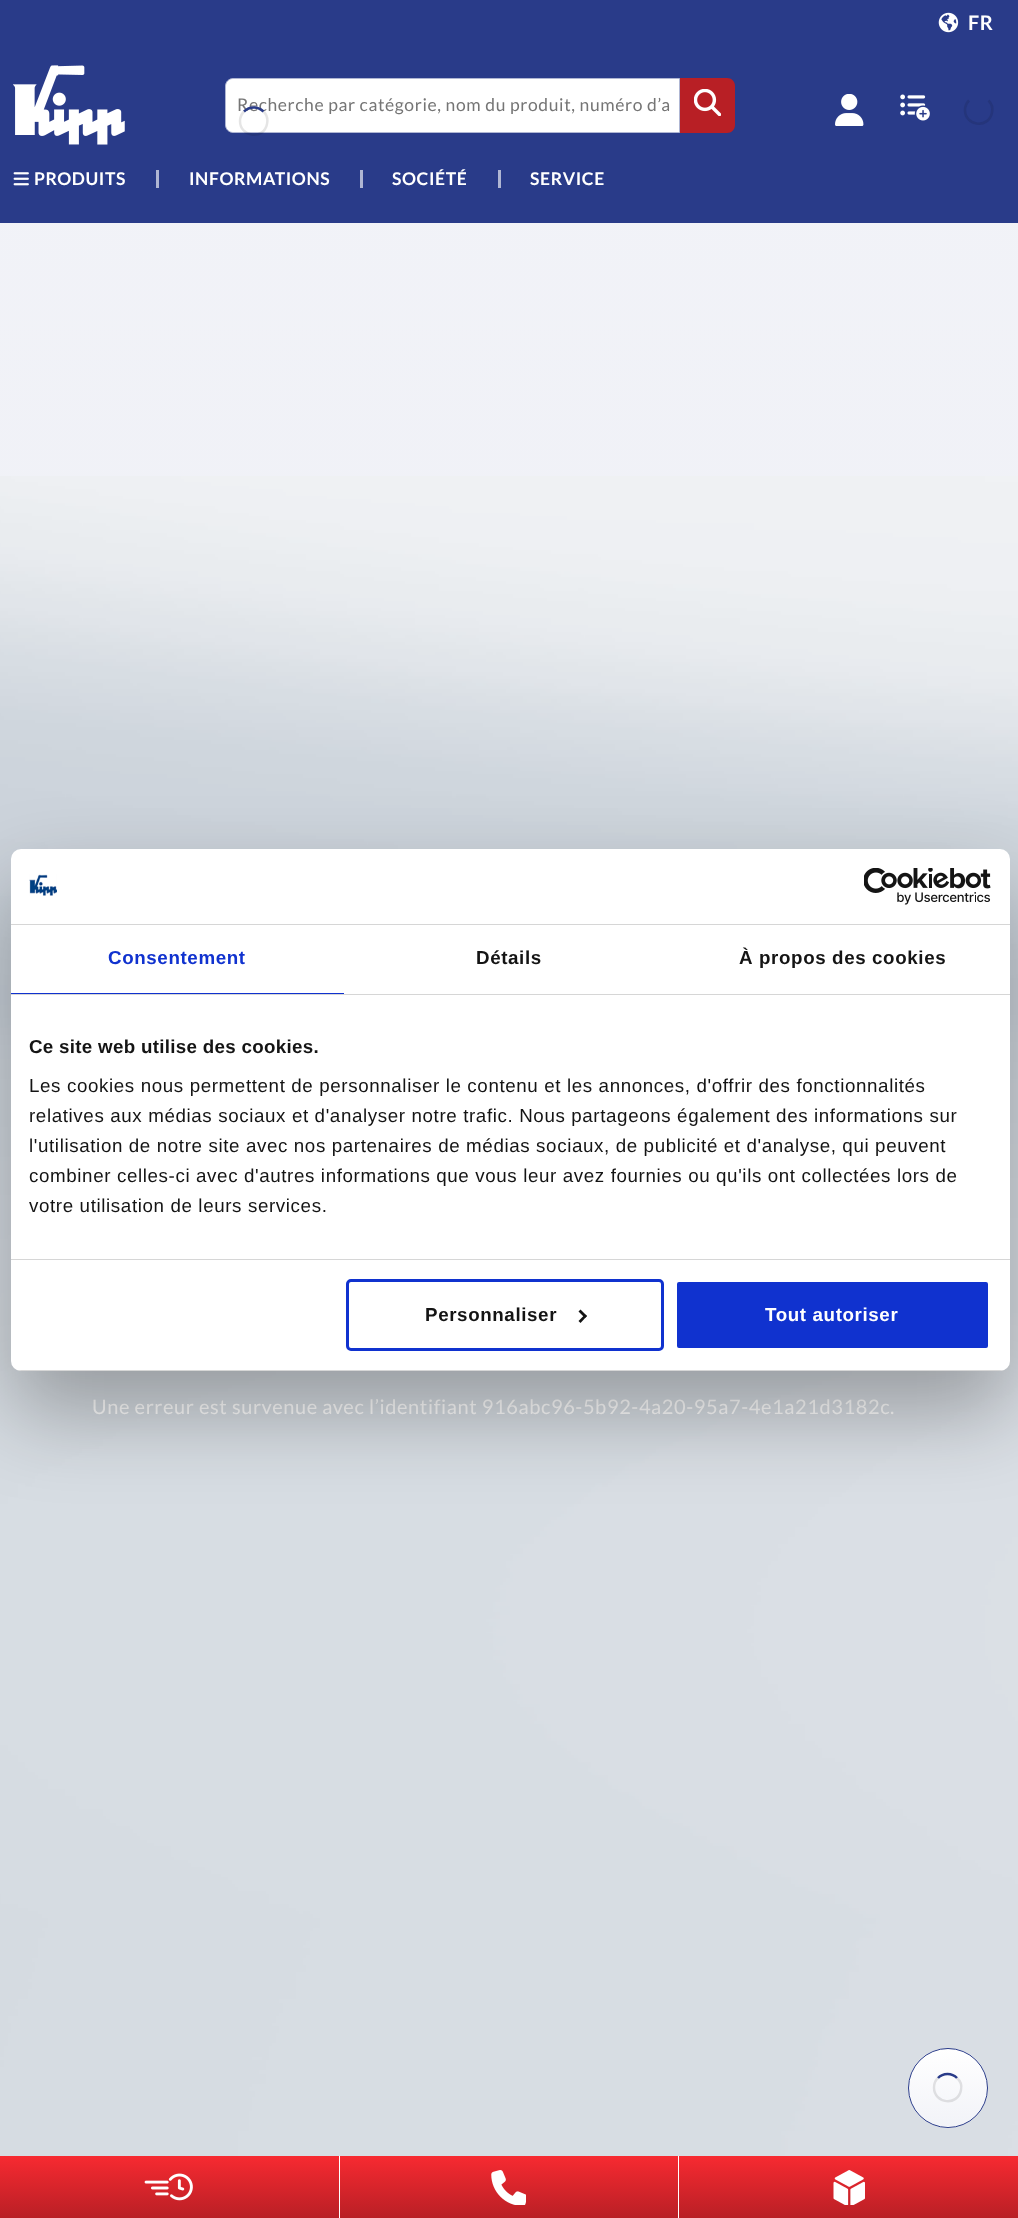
<svg xmlns="http://www.w3.org/2000/svg" width="1018" height="2218">
	<defs>
		<linearGradient id="g1" gradientUnits="userSpaceOnUse" x1="509" y1="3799" x2="509" y2="0"><stop offset="0" stop-color="#E4E7F0" /><stop offset="1" stop-color="#F2F3F8" /></linearGradient>
		<clipPath id="clip1"><rect x="908" y="2048" width="80" height="80" rx="40" /></clipPath>
		<linearGradient id="g2" gradientUnits="userSpaceOnUse" x1="948" y1="2126" x2="948" y2="2049"><stop offset="0" stop-color="#F2F3F8" /><stop offset="1" stop-color="#FFFFFF" /></linearGradient>
		<linearGradient id="g3" gradientUnits="userSpaceOnUse" x1="948" y1="2204" x2="948" y2="2126"><stop offset="0" stop-color="#F2F3F8" /><stop offset="1" stop-color="#FFFFFF" /></linearGradient>
		<linearGradient id="g4" gradientUnits="userSpaceOnUse" x1="169" y1="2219" x2="169" y2="2156"><stop offset="0" stop-color="#B81F25" /><stop offset="1" stop-color="#F72A31" /></linearGradient>
		<linearGradient id="g5" gradientUnits="userSpaceOnUse" x1="509" y1="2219" x2="509" y2="2156"><stop offset="0" stop-color="#B81F25" /><stop offset="1" stop-color="#F72A31" /></linearGradient>
		<linearGradient id="g6" gradientUnits="userSpaceOnUse" x1="849" y1="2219" x2="849" y2="2156"><stop offset="0" stop-color="#B81F25" /><stop offset="1" stop-color="#F72A31" /></linearGradient>
		<clipPath id="clip2"><rect x="11" y="849" width="999" height="522" rx="10" /></clipPath>
	</defs>
	<rect width="100%" height="100%" fill="#FFFFFF" />
	<rect x="0" y="223" width="1018" height="253" fill="url(#g1)" />
	<rect x="0" y="0" width="1018" height="223" fill="#293B89" />
	<image x="938" y="12" width="21" height="21" href="assets/img1.png" />
	<text x="968" y="30" font-family="Lato" font-size="20" font-weight="700" letter-spacing="0.62" fill="#FFFFFF">FR</text>
	<image x="13" y="65" width="112" height="80" href="assets/img2.png" />
	<path d="M233 78.5H679.5V132.5H233C229 132.5 225.5 129 225.5 125V86C225.5 82 229 78.5 233 78.5Z" fill="#FFFFFF" stroke="#AFB6D3" />
	<text x="237" y="111" font-family="Lato" font-size="17.5" letter-spacing="0.62" fill="#757575">Recherche par catégorie, nom du produit, numéro d’a</text>
	<path d="M680 78H727C731.5 78 735 81.5 735 86V125C735 129.5 731.5 133 727 133H680Z" fill="#B81F25" />
	<image x="694" y="89" width="27" height="27" href="assets/img3.png" />
	<path d="M244 111.5C249.5 106 258 106 263.5 111.5" fill="none" stroke="#293B89" stroke-width="2.5" />
	<path d="M263.5 111.5C266.5 114.5 268 119.5 267 124C264 140 240 137.5 240 121C240 117.5 241.5 114 244 111.5" fill="none" stroke="#000000" stroke-opacity="0.1" stroke-width="2.5" />
	<image x="835" y="94" width="29" height="32" href="assets/img4.png" />
	<image x="900" y="94" width="30" height="27" href="assets/img5.png" />
	<path d="M988.5 100.5C991.5 103.5 993 108 992 112.5C989 129 965 126.5 965 110C965 106.5 966.5 103 969 100.5" fill="none" stroke="#25357B" stroke-width="2.5" />
	<image x="13" y="172" width="16" height="14" href="assets/img6.png" />
	<text x="34" y="185" font-family="Lato" font-size="17.5" font-weight="700" letter-spacing="0.62" fill="#FFFFFF">PRODUITS</text>
	<rect x="156" y="170" width="3" height="18" fill="#AFB6D3" />
	<text x="189" y="185" font-family="Lato" font-size="17.5" font-weight="700" letter-spacing="0.62" fill="#FFFFFF">INFORMATIONS</text>
	<rect x="360" y="170" width="3" height="18" fill="#AFB6D3" />
	<text x="392" y="185" font-family="Lato" font-size="17.5" font-weight="700" letter-spacing="0.62" fill="#FFFFFF">SOCIÉTÉ</text>
	<rect x="498" y="170" width="3" height="18" fill="#AFB6D3" />
	<text x="530" y="185" font-family="Lato" font-size="17.5" font-weight="700" letter-spacing="0.62" fill="#FFFFFF">SERVICE</text>
	<image x="0" y="476" width="1018" height="1680" href="assets/img7.png" />
	<text x="92" y="1414" font-family="Lato" font-size="20" letter-spacing="0.62" fill="#FFFFFF">Une erreur est survenue avec l’identifiant 916abc96-5b92-4a20-95a7-4e1a21d3182c.</text>
	<g clip-path="url(#clip1)">
		<rect x="908" y="2049" width="80" height="77" fill="url(#g2)" />
		<rect x="935" y="2126" width="26" height="2" fill="url(#g3)" />
	</g>
	<circle cx="948" cy="2088" r="39.5" fill="none" stroke="#293B89" />
	<path d="M938 2078C943 2072.5 952 2072.5 957 2078" fill="none" stroke="#293B89" stroke-width="2.5" />
	<path d="M957 2078C960.5 2081 962 2085.5 961 2090C958 2106.5 934 2104 934 2087.5C934 2084 935 2080.5 938 2078" fill="none" stroke="#000000" stroke-opacity="0.1" stroke-width="2.5" />
	<rect x="0" y="2156" width="339" height="62" fill="url(#g4)" />
	<image x="144" y="2173" width="49" height="28" href="assets/img8.png" />
	<rect x="340" y="2156" width="338" height="62" fill="url(#g5)" />
	<image x="491" y="2170" width="35" height="35" href="assets/img9.png" />
	<rect x="679" y="2156" width="339" height="62" fill="url(#g6)" />
	<image x="833" y="2170" width="32" height="35" href="assets/img10.png" />
	<rect x="11" y="889" width="999" height="522" rx="10" fill="#000000" fill-opacity="0.3" filter="blur(42.5px)" />
	<rect x="11" y="849" width="999" height="522" rx="10" fill="#FFFFFF" />
	<rect x="11" y="924" width="999" height="1" fill="#D6D6D6" />
	<image x="29" y="874" width="28" height="22" href="assets/img11.png" />
	<image x="864" y="868" width="127" height="37" href="assets/img12.png" />
	<rect x="11" y="994" width="999" height="1" fill="#D6D6D6" />
	<rect x="11" y="993" width="333" height="1" fill="#1032CF" />
	<text x="108" y="964" font-family="Liberation Sans" font-size="18.75" font-weight="700" letter-spacing="0.62" fill="#1032CF">Consentement</text>
	<g font-family="Liberation Sans" font-size="18.75" font-weight="700" letter-spacing="0.62" fill="#141414">
		<text x="476" y="964">Détails</text>
		<text x="739" y="964">À propos des cookies</text>
	</g>
	<rect x="11" y="1259" width="999" height="1" fill="#D6D6D6" />
	<text x="29" y="1053" font-family="Liberation Sans" font-size="18.75" font-weight="700" letter-spacing="0.3" fill="#141414">Ce site web utilise des cookies.</text>
	<g font-family="Liberation Sans" font-size="18.75" letter-spacing="0.62" fill="#141414">
		<text x="29" y="1092">Les cookies nous permettent de personnaliser le contenu et les annonces, d'offrir des fonctionnalités</text>
		<text x="29" y="1122">relatives aux médias sociaux et d'analyser notre trafic. Nous partageons également des informations sur</text>
		<text x="29" y="1152">l'utilisation de notre site avec nos partenaires de médias sociaux, de publicité et d'analyse, qui peuvent</text>
		<text x="29" y="1182">combiner celles-ci avec d'autres informations que vous leur avez fournies ou qu'ils ont collectées lors de</text>
		<text x="29" y="1212">votre utilisation de leurs services.</text>
	</g>
	<g clip-path="url(#clip2)">
		<rect x="11" y="1370" width="999" height="1" fill="#D6D6D6" />
	</g>
	<rect x="347.5" y="1280.5" width="315" height="69" rx="3.5" fill="none" stroke="#1032CF" stroke-width="3" />
	<text x="425" y="1321" font-family="Liberation Sans" font-size="18.75" font-weight="700" letter-spacing="0.62" fill="#141414">Personnaliser</text>
	<path d="M580.5 1309.5L587 1316L585 1318L578.5 1311.5Z" fill="#141414" />
	<path d="M585 1314.5L587 1316L580.5 1323L578.5 1321Z" fill="#141414" />
	<rect x="675.5" y="1280.5" width="314" height="69" rx="3.5" fill="#1032CF" stroke="#FFFFFF" stroke-width="3" />
	<text x="765" y="1321" font-family="Liberation Sans" font-size="18.75" font-weight="700" letter-spacing="0.62" fill="#FFFFFF">Tout autoriser</text>
</svg>
